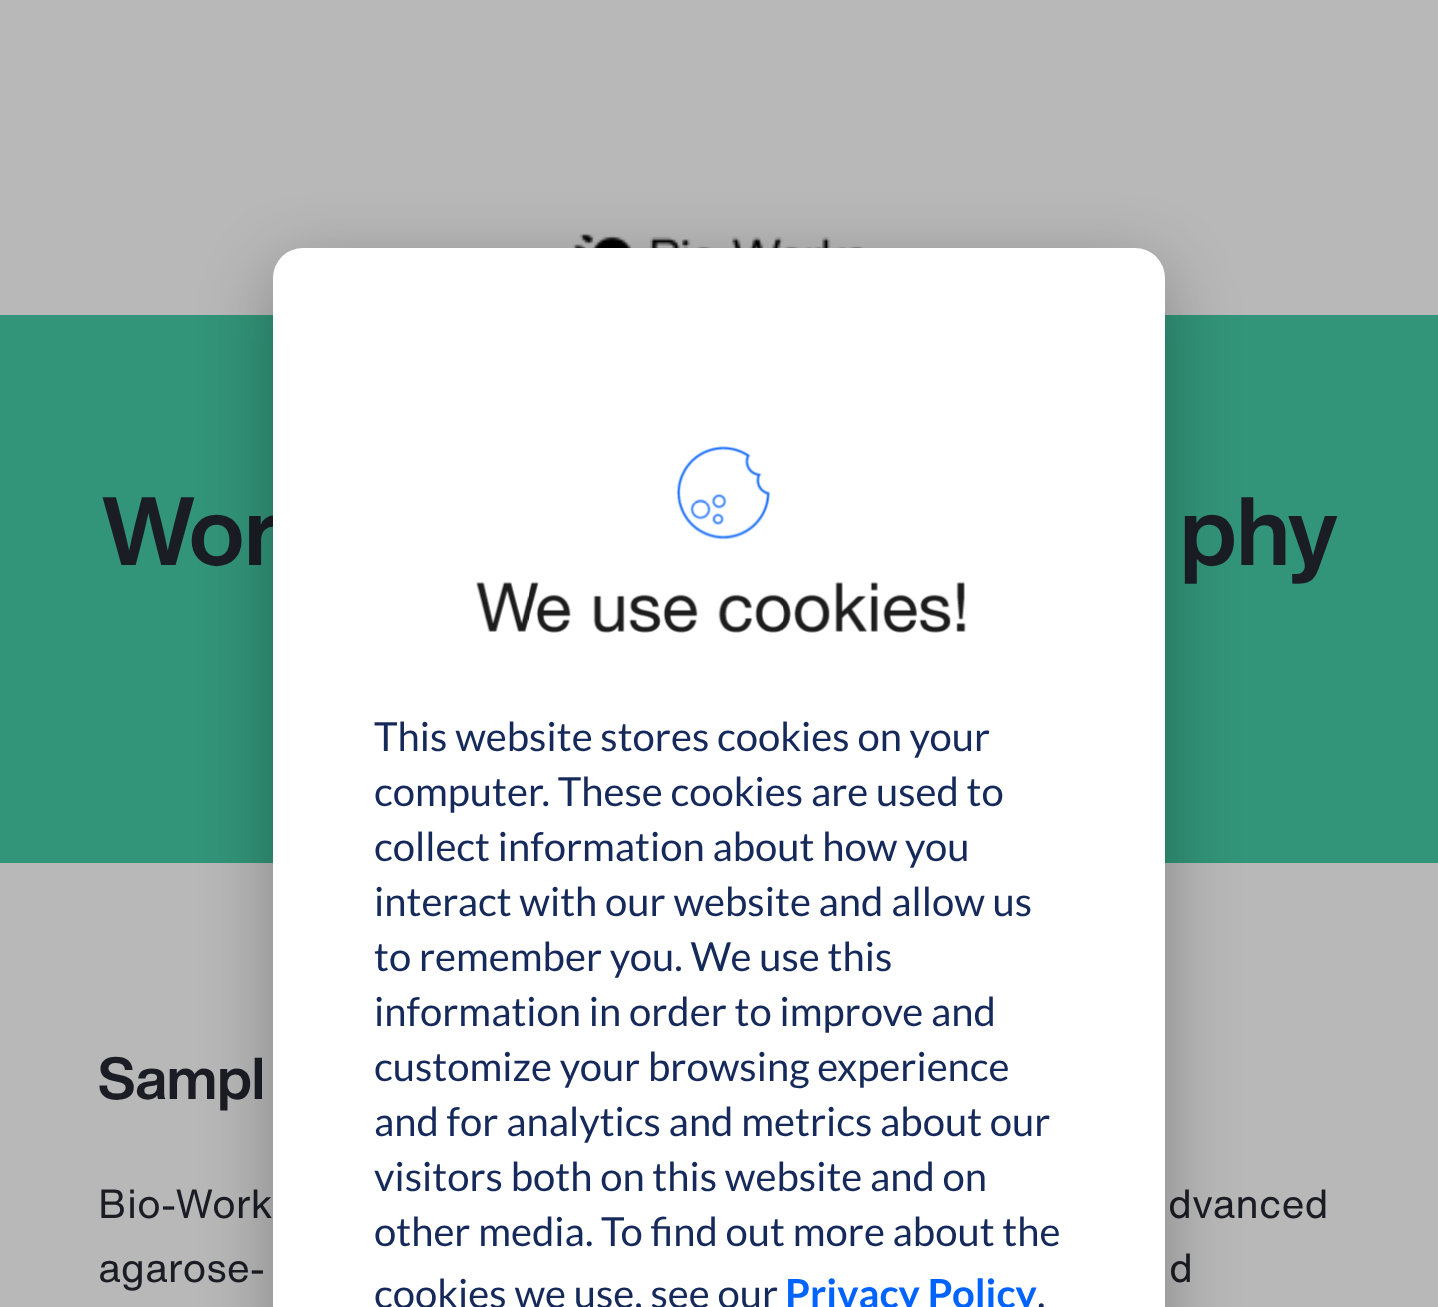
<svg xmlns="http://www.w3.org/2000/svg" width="1438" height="1307">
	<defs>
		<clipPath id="clip1"><rect x="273" y="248" width="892" height="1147" rx="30" /></clipPath>
		<clipPath id="clip2"><path d="M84 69H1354V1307H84ZM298 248H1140C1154 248 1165 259 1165 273V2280C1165 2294 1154 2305 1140 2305H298C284 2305 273 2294 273 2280V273C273 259 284 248 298 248Z" clip-rule="evenodd" /></clipPath>
	</defs>
	<rect width="100%" height="100%" fill="#B8B8B8" />
	<image x="572" y="233" width="291" height="15" href="assets/img1.png" />
	<rect x="0" y="315" width="1438" height="548" fill="#329478" />
	<g font-family="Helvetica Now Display" font-size="95" font-weight="700" fill="#1B1D25">
		<text x="102" y="565">Wor</text>
		<text x="1180" y="565">phy</text>
	</g>
	<text x="98" y="1099" font-family="Helvetica Now Display" font-size="58" font-weight="700" fill="#1B1D25">Sampl</text>
	<g font-family="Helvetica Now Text" font-size="40" fill="#1B1D25">
		<text x="98" y="1218">Bio-Work</text>
		<text x="1168" y="1218">dvanced</text>
		<text x="98" y="1282">agarose-</text>
		<text x="1169" y="1282">d</text>
	</g>
	<rect x="273" y="268" width="892" height="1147" rx="30" fill="#000000" fill-opacity="0.28" filter="blur(35px)" />
	<rect x="273" y="248" width="892" height="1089" rx="30" fill="#FFFFFF" />
	<g clip-path="url(#clip1)">
		<g clip-path="url(#clip2)">
			<rect x="273" y="258" width="892" height="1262" rx="25" fill="#112030" fill-opacity="0.16" filter="blur(62.5px)" />
		</g>
	</g>
	<image x="476" y="446" width="490" height="187" href="assets/img2.png" />
	<g font-family="Lato" font-size="40" fill="#15295A">
		<text x="374" y="751">This website stores cookies on your</text>
		<text x="374" y="806">computer. These cookies are used to</text>
		<text x="374" y="861">collect information about how you</text>
		<text x="374" y="916">interact with our website and allow us</text>
		<text x="374" y="971">to remember you. We use this</text>
		<text x="374" y="1026">information in order to improve and</text>
		<text x="374" y="1081">customize your browsing experience</text>
		<text x="374" y="1136">and for analytics and metrics about our</text>
		<text x="374" y="1191">visitors both on this website and on</text>
		<text x="374" y="1246">other media. To find out more about the</text>
		<text x="374" y="1308">cookies we use, see our</text>
	</g>
	<text x="785" y="1308" font-family="Lato" font-size="40" font-weight="700" fill="#0063FE">Privacy Policy</text>
	<text x="1037" y="1308" font-family="Lato" font-size="40" fill="#15295A">.</text>
</svg>
